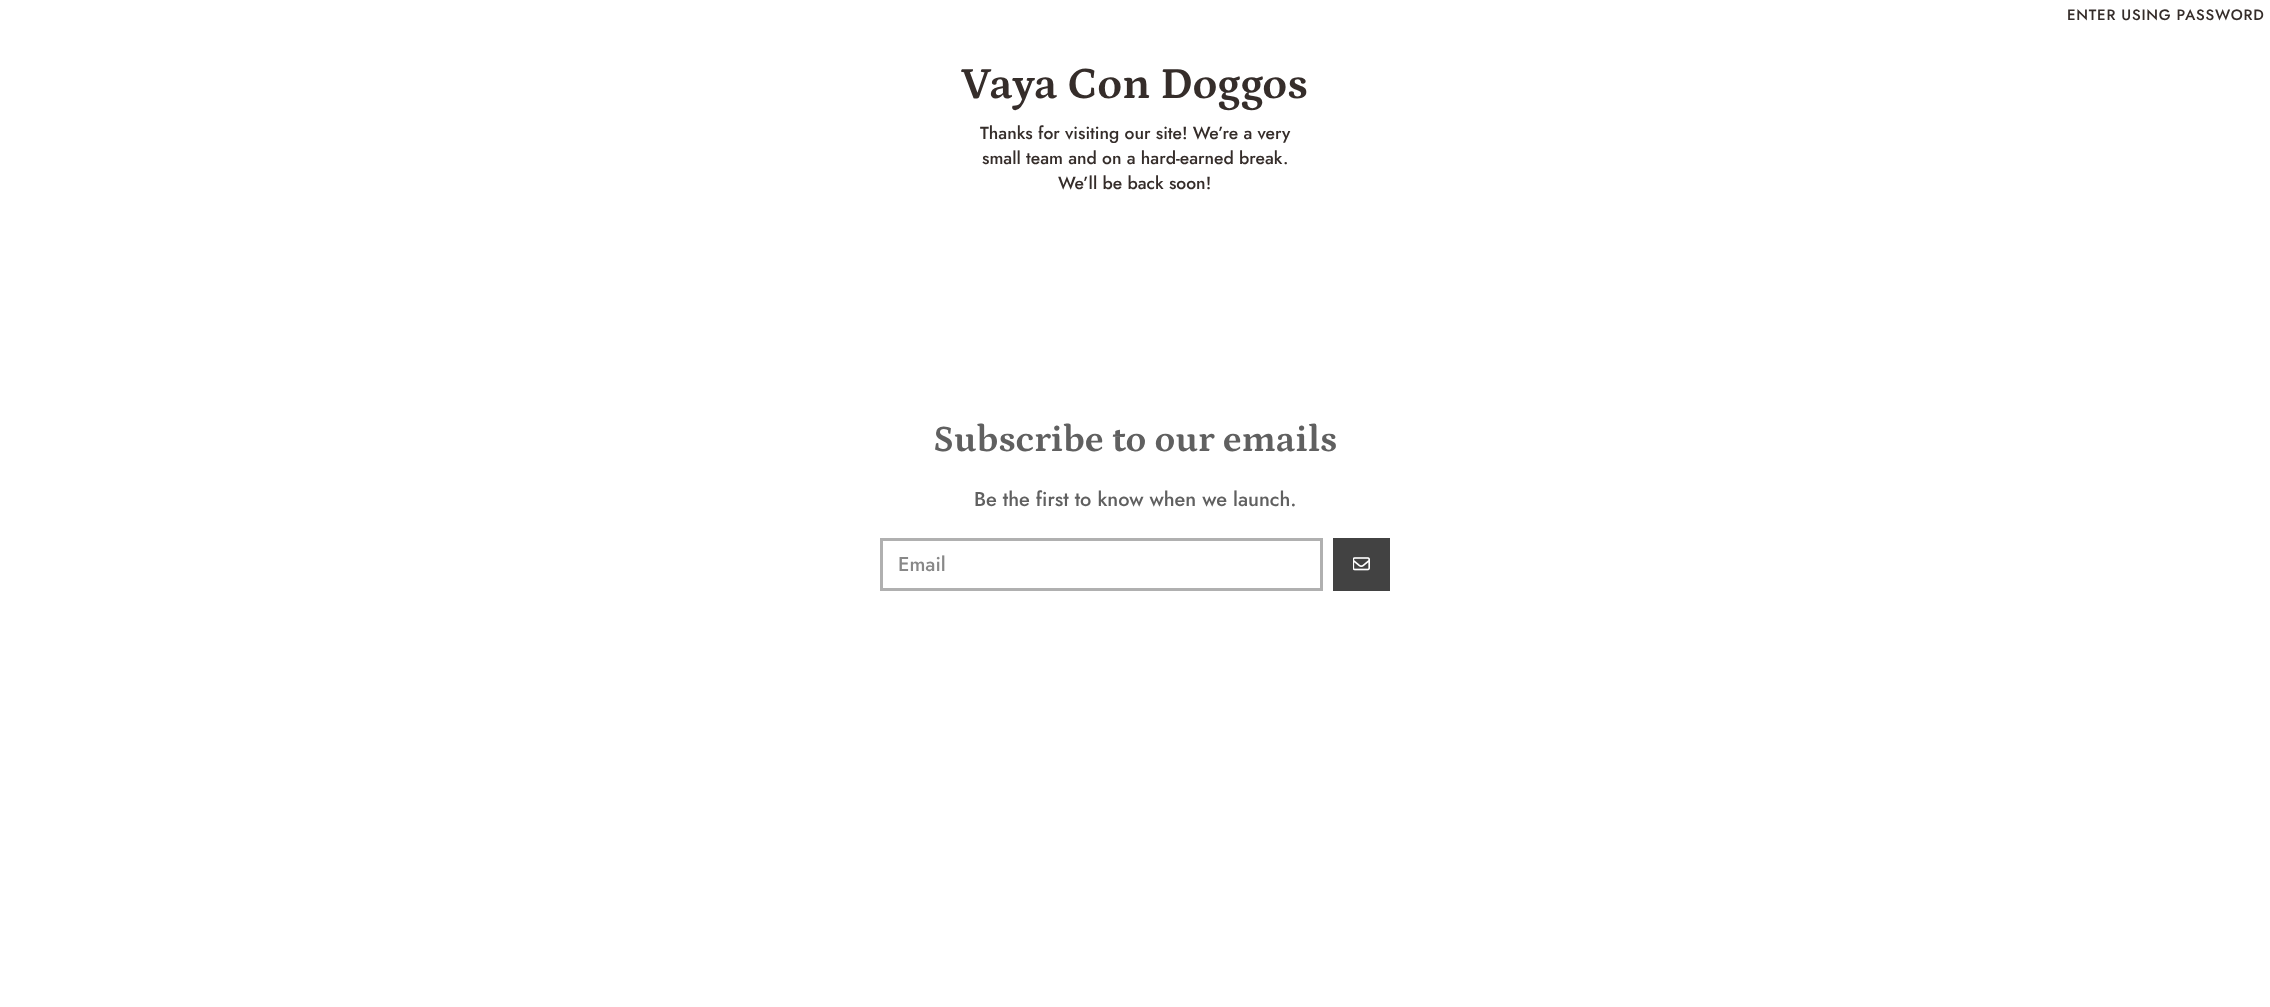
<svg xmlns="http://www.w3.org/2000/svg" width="2270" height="1007">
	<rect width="100%" height="100%" fill="#FFFFFF" />
	<text x="2067" y="20" font-family="Jost" font-size="15" font-weight="500" letter-spacing="0.75" fill="#352D2A">ENTER USING PASSWORD</text>
	<text x="961" y="98" font-family="Petrona" font-size="45" font-weight="700" fill="#352D2A">Vaya Con Doggos</text>
	<g font-family="Jost" font-size="17.5" font-weight="500" fill="#352D2A">
		<text x="980" y="139">Thanks for visiting our site! We’re a very</text>
		<text x="982" y="164">small team and on a hard-earned break.</text>
		<text x="1058" y="189">We’ll be back soon!</text>
	</g>
	<text x="933" y="451" font-family="Petrona" font-size="37.5" font-weight="700" fill="#606060">Subscribe to our emails</text>
	<text x="974" y="506" font-family="Jost" font-size="20" font-weight="500" fill="#606060">Be the first to know when we launch.</text>
	<rect x="881.5" y="539.5" width="440" height="50" fill="none" stroke="#B0B0B0" stroke-width="3" />
	<text x="898" y="571" font-family="Jost" font-size="20" font-weight="500" fill="#888888">Email</text>
	<rect x="1333" y="538" width="57" height="53" fill="#424242" />
	<image x="1353" y="557" width="17" height="14" href="assets/img1.png" />
</svg>
